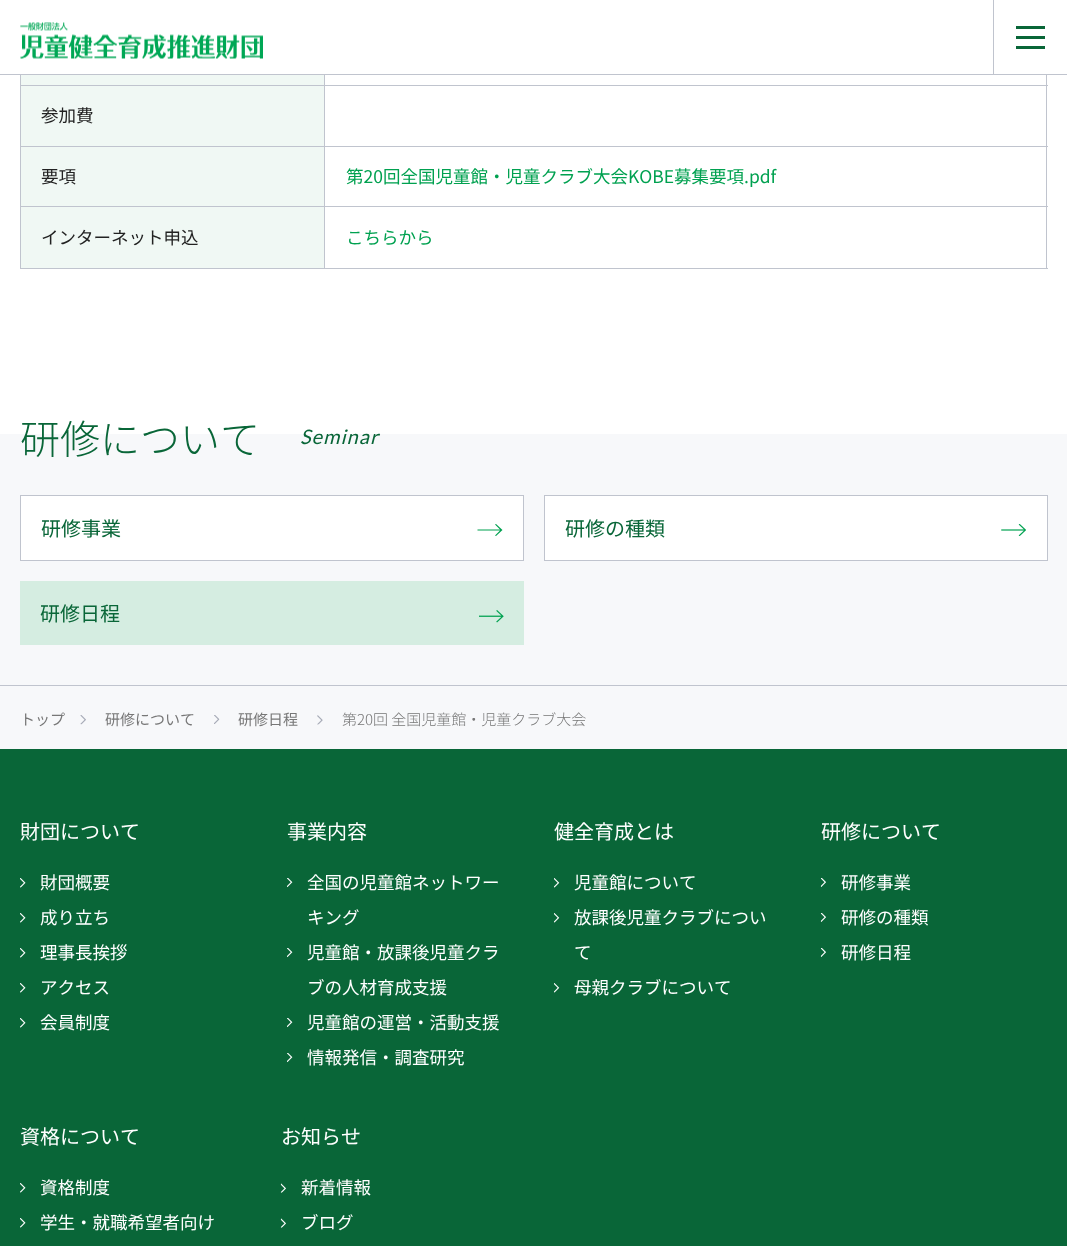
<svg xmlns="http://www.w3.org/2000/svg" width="1067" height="1246">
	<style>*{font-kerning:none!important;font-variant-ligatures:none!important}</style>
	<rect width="100%" height="100%" fill="#FFFFFF" />
	<rect x="0" y="74" width="1067" height="1" fill="#C0C4CE" />
	<image x="20" y="22" width="243" height="37" href="assets/img1.png" />
	<rect x="993" y="0" width="1" height="74" fill="#C0C4CE" />
	<rect x="1016" y="26" width="29" height="3" fill="#096638" />
	<rect x="1016" y="36" width="29" height="3" fill="#096638" />
	<rect x="1016" y="46" width="29" height="3" fill="#096638" />
	<rect x="21" y="75" width="303" height="10" fill="#F0F8F4" />
	<rect x="324" y="85" width="724" height="1" fill="#C0C4CE" />
	<rect x="324" y="146" width="724" height="1" fill="#C0C4CE" />
	<rect x="21" y="147" width="303" height="121" fill="#F0F8F4" />
	<rect x="324" y="206" width="724" height="1" fill="#C0C4CE" />
	<rect x="1046" y="206" width="1" height="63" fill="#C0C4CE" />
	<rect x="324" y="268" width="724" height="1" fill="#C0C4CE" />
	<rect x="324" y="206" width="1" height="63" fill="#C0C4CE" />
	<rect x="20" y="206" width="305" height="1" fill="#C0C4CE" />
	<rect x="324" y="146" width="1" height="62" fill="#C0C4CE" />
	<rect x="20" y="146" width="305" height="1" fill="#C0C4CE" />
	<rect x="324" y="85" width="1" height="63" fill="#C0C4CE" />
	<rect x="20" y="85" width="305" height="1" fill="#C0C4CE" />
	<rect x="324" y="75" width="1" height="11" fill="#C0C4CE" />
	<rect x="21" y="86" width="303" height="60" fill="#F0F8F4" />
	<rect x="20" y="268" width="305" height="1" fill="#C0C4CE" />
	<rect x="20" y="206" width="1" height="63" fill="#C0C4CE" />
	<rect x="20" y="146" width="1" height="62" fill="#C0C4CE" />
	<rect x="20" y="75" width="1" height="73" fill="#C0C4CE" />
	<text x="41" y="122" font-family="Noto Sans JP" font-size="17.5" fill="#222222">参加費</text>
	<rect x="1046" y="146" width="1" height="62" fill="#C0C4CE" />
	<rect x="1046" y="75" width="1" height="73" fill="#C0C4CE" />
	<text x="41" y="183" font-family="Noto Sans JP" font-size="17.5" fill="#222222">要項</text>
	<text x="346" y="183" font-family="Noto Sans JP" font-size="17.5" fill="#00A150">第20回全国児童館・児童クラブ大会KOBE募集要項.pdf</text>
	<text x="41" y="244" font-family="Noto Sans JP" font-size="17.5" fill="#222222">インターネット申込</text>
	<text x="346" y="244" font-family="Noto Sans JP" font-size="17.5" fill="#00A150">こちらから</text>
	<rect x="0" y="685" width="1067" height="1" fill="#C0C4CE" />
	<rect x="0" y="434" width="1067" height="251" fill="#F7F8FA" />
	<text x="20" y="454" font-family="Noto Sans JP" font-size="40" font-weight="300" fill="#096638">研修について</text>
	<text x="300" y="444" font-family="Lato" font-size="20" font-style="italic" letter-spacing="1" fill="#096638">Seminar</text>
	<rect x="20.5" y="495.5" width="503" height="65" fill="#FFFFFF" stroke="#C0C4CE" />
	<text x="41" y="536" font-family="Noto Sans JP" font-size="20" fill="#096638">研修事業</text>
	<path d="M496 524L495 524.5L500 529.5H477.5V530.5H500L495 535.5L496 536L502.5 530Z" fill="#00A150" fill-rule="evenodd" />
	<rect x="544.5" y="495.5" width="503" height="65" fill="#FFFFFF" stroke="#C0C4CE" />
	<text x="565" y="536" font-family="Noto Sans JP" font-size="20" fill="#096638">研修の種類</text>
	<image x="1001" y="524" width="25" height="12" href="assets/img2.png" />
	<rect x="20" y="581" width="504" height="64" fill="#D5EDE1" />
	<text x="40" y="621" font-family="Noto Sans JP" font-size="20" fill="#096638">研修日程</text>
	<image x="479" y="610" width="25" height="13" href="assets/img3.png" />
	<rect x="0" y="686" width="1067" height="63" fill="#F7F8FA" />
	<text x="20" y="725" font-family="Noto Sans JP" font-size="15" fill="#777777">トップ</text>
	<image x="80" y="715" width="6" height="10" href="assets/img4.png" />
	<text x="105" y="725" font-family="Noto Sans JP" font-size="15" fill="#777777">研修について</text>
	<image x="214" y="715" width="6" height="9" href="assets/img5.png" />
	<text x="238" y="725" font-family="Noto Sans JP" font-size="15" fill="#777777">研修日程</text>
	<image x="317" y="715" width="6" height="10" href="assets/img6.png" />
	<text x="342" y="725" font-family="Noto Sans JP" font-size="15" font-weight="300" fill="#777777">第20回 全国児童館・児童クラブ大会</text>
	<rect x="0" y="749" width="1067" height="497" fill="#096638" />
	<text x="20" y="839" font-family="Noto Sans JP" font-size="20" fill="#FFFFFF">財団について</text>
	<image x="20" y="878" width="6" height="10" href="assets/img7.png" />
	<text x="40" y="889" font-family="Noto Sans JP" font-size="17.5" fill="#FFFFFF">財団概要</text>
	<image x="20" y="913" width="6" height="10" href="assets/img7.png" />
	<text x="40" y="924" font-family="Noto Sans JP" font-size="17.5" fill="#FFFFFF">成り立ち</text>
	<image x="20" y="948" width="6" height="10" href="assets/img7.png" />
	<text x="40" y="959" font-family="Noto Sans JP" font-size="17.5" fill="#FFFFFF">理事長挨拶</text>
	<image x="20" y="983" width="6" height="10" href="assets/img7.png" />
	<text x="40" y="994" font-family="Noto Sans JP" font-size="17.5" fill="#FFFFFF">アクセス</text>
	<image x="20" y="1018" width="6" height="10" href="assets/img7.png" />
	<text x="40" y="1029" font-family="Noto Sans JP" font-size="17.5" fill="#FFFFFF">会員制度</text>
	<text x="287" y="839" font-family="Noto Sans JP" font-size="20" fill="#FFFFFF">事業内容</text>
	<image x="287" y="878" width="6" height="10" href="assets/img8.png" />
	<g font-family="Noto Sans JP" font-size="17.5" fill="#FFFFFF">
		<text x="307" y="889">全国の児童館ネットワー</text>
		<text x="307" y="924">キング</text>
	</g>
	<image x="287" y="948" width="6" height="10" href="assets/img8.png" />
	<g font-family="Noto Sans JP" font-size="17.5" fill="#FFFFFF">
		<text x="307" y="959">児童館・放課後児童クラ</text>
		<text x="307" y="994">ブの人材育成支援</text>
	</g>
	<image x="287" y="1018" width="6" height="10" href="assets/img8.png" />
	<text x="307" y="1029" font-family="Noto Sans JP" font-size="17.5" fill="#FFFFFF">児童館の運営・活動支援</text>
	<image x="287" y="1053" width="6" height="10" href="assets/img8.png" />
	<text x="307" y="1064" font-family="Noto Sans JP" font-size="17.5" fill="#FFFFFF">情報発信・調査研究</text>
	<text x="554" y="839" font-family="Noto Sans JP" font-size="20" fill="#FFFFFF">健全育成とは</text>
	<image x="554" y="878" width="6" height="10" href="assets/img9.png" />
	<text x="574" y="889" font-family="Noto Sans JP" font-size="17.5" fill="#FFFFFF">児童館について</text>
	<image x="554" y="913" width="6" height="10" href="assets/img9.png" />
	<g font-family="Noto Sans JP" font-size="17.5" fill="#FFFFFF">
		<text x="574" y="924">放課後児童クラブについ</text>
		<text x="574" y="959">て</text>
	</g>
	<image x="554" y="983" width="6" height="10" href="assets/img9.png" />
	<text x="574" y="994" font-family="Noto Sans JP" font-size="17.5" fill="#FFFFFF">母親クラブについて</text>
	<text x="821" y="839" font-family="Noto Sans JP" font-size="20" fill="#FFFFFF">研修について</text>
	<image x="820" y="878" width="6" height="9" href="assets/img10.png" />
	<text x="841" y="889" font-family="Noto Sans JP" font-size="17.5" fill="#FFFFFF">研修事業</text>
	<image x="820" y="913" width="6" height="9" href="assets/img10.png" />
	<text x="841" y="924" font-family="Noto Sans JP" font-size="17.5" fill="#FFFFFF">研修の種類</text>
	<image x="820" y="948" width="6" height="9" href="assets/img10.png" />
	<text x="841" y="959" font-family="Noto Sans JP" font-size="17.5" fill="#FFFFFF">研修日程</text>
	<text x="20" y="1144" font-family="Noto Sans JP" font-size="20" fill="#FFFFFF">資格について</text>
	<image x="20" y="1183" width="6" height="10" href="assets/img7.png" />
	<text x="40" y="1194" font-family="Noto Sans JP" font-size="17.5" fill="#FFFFFF">資格制度</text>
	<image x="20" y="1218" width="6" height="10" href="assets/img7.png" />
	<text x="40" y="1229" font-family="Noto Sans JP" font-size="17.5" fill="#FFFFFF">学生・就職希望者向け</text>
	<text x="281" y="1144" font-family="Noto Sans JP" font-size="20" fill="#FFFFFF">お知らせ</text>
	<image x="280" y="1183" width="6" height="10" href="assets/img11.png" />
	<text x="301" y="1194" font-family="Noto Sans JP" font-size="17.5" fill="#FFFFFF">新着情報</text>
	<image x="280" y="1218" width="6" height="10" href="assets/img11.png" />
	<text x="301" y="1229" font-family="Noto Sans JP" font-size="17.5" fill="#FFFFFF">ブログ</text>
</svg>
